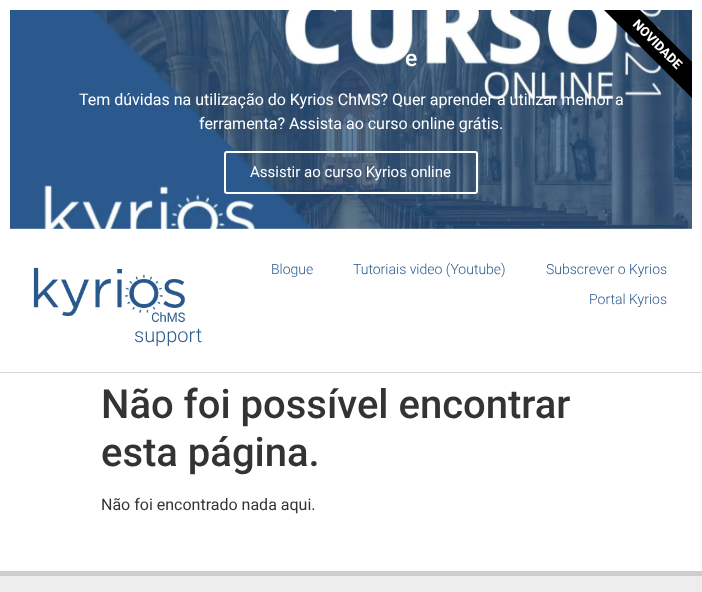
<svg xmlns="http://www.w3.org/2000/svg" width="702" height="592">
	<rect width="100%" height="100%" fill="#FFFFFF" />
	<image x="10" y="10" width="682" height="219" href="assets/img1.png" />
	<text x="79" y="105" font-family="Roboto" font-size="16" fill="#FFFFFF">Tem dúvidas na utilização do Kyrios ChMS? Quer aprender a utilizar melhor a</text>
	<path d="M692 98L604 10H640L692 62Z" fill="#000000" />
	<text x="632" y="25" transform="rotate(45 632 25)" font-family="Roboto" font-size="13" font-weight="800" fill="#FFFFFF">NOVIDADE</text>
	<text x="405" y="66" font-family="Roboto" font-size="23" font-weight="500" fill="#FFFFFF">e</text>
	<text x="199" y="129" font-family="Roboto" font-size="16" fill="#FFFFFF">ferramenta? Assista ao curso online grátis.</text>
	<rect x="225" y="152" width="252" height="41" rx="2" fill="none" stroke="#FFFFFF" stroke-width="2" />
	<text x="250" y="177" font-family="Roboto" font-size="15" fill="#FFFFFF">Assistir ao curso Kyrios online</text>
	<rect x="0" y="372" width="702" height="1" fill="#D6D6D6" />
	<g font-family="Roboto" font-size="14" font-weight="300" fill="#29588D">
		<text x="271" y="274">Blogue</text>
		<text x="353" y="274">Tutoriais video (Youtube)</text>
		<text x="546" y="274">Subscrever o Kyrios</text>
		<text x="589" y="304">Portal Kyrios</text>
	</g>
	<image x="33" y="267" width="153" height="56" href="assets/img2.png" />
	<text x="134" y="342" font-family="Roboto" font-size="20" font-weight="300" fill="#29588D">support</text>
	<g font-family="Roboto" font-size="40" font-weight="500" fill="#333333">
		<text x="101" y="418">Não foi possível encontrar</text>
		<text x="101" y="466">esta página.</text>
	</g>
	<text x="101" y="510" font-family="Roboto" font-size="16" fill="#333333">Não foi encontrado nada aqui.</text>
	<rect x="0" y="576" width="702" height="16" fill="#EDEDED" />
	<rect x="0" y="571" width="702" height="5" fill="#CECECE" />
</svg>
